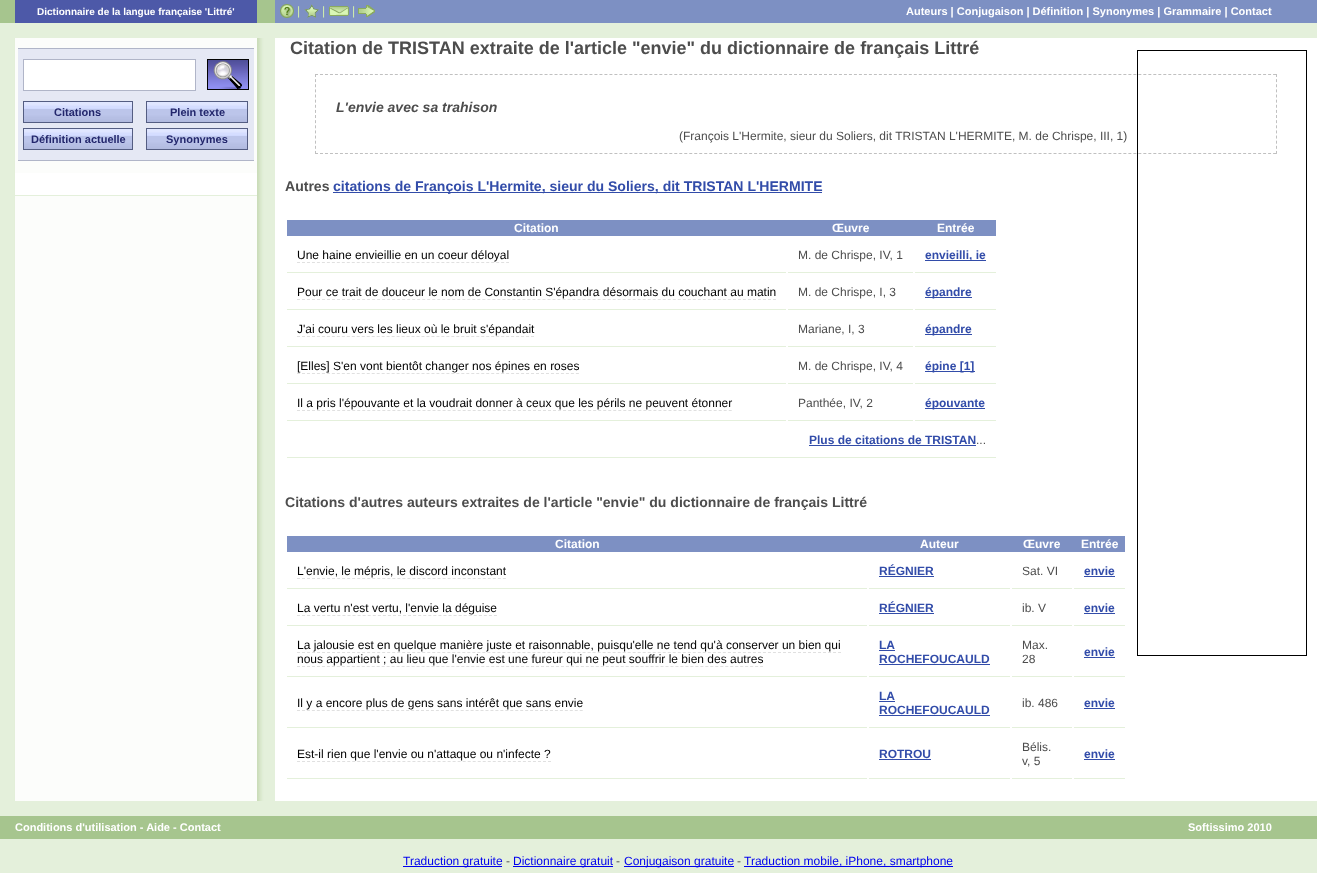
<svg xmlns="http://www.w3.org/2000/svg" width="1317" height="873">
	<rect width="100%" height="100%" fill="#E4F0DB" />
	<rect x="0" y="0" width="275" height="23" fill="#A6C58E" />
	<rect x="15" y="0" width="242" height="23" fill="#4D59A8" />
	<text x="37" y="15" font-family="Liberation Sans" font-size="10" font-weight="700" fill="#FFFFFF">Dictionnaire de la langue française 'Littré'</text>
	<rect x="275" y="0" width="1042" height="23" fill="#7D90C3" />
	<image x="280" y="4" width="14" height="14" href="assets/img1.png" />
	<text x="297" y="15" font-family="Liberation Sans" font-size="12" fill="#D2EFAD">|</text>
	<image x="304" y="4" width="15" height="14" href="assets/img2.png" />
	<text x="322" y="15" font-family="Liberation Sans" font-size="12" fill="#D2EFAD">|</text>
	<image x="329" y="6" width="20" height="10" href="assets/img3.png" />
	<text x="352" y="15" font-family="Liberation Sans" font-size="12" fill="#D2EFAD">|</text>
	<image x="358" y="5" width="17" height="12" href="assets/img4.png" />
	<text x="906" y="15" font-family="Liberation Sans" font-size="11" font-weight="700" fill="#FFFFFF">Auteurs | Conjugaison | Définition | Synonymes | Grammaire | Contact</text>
	<rect x="275" y="38" width="1042" height="763" fill="#FFFFFF" />
	<image x="0" y="38" width="275" height="763" href="assets/img5.png" />
	<rect x="18" y="49" width="236" height="111" fill="#E5E8F4" />
	<rect x="18" y="48" width="236" height="1" fill="#B0B5C8" />
	<rect x="18" y="160" width="236" height="1" fill="#B0B5C8" />
	<rect x="23.5" y="59.5" width="172" height="31" fill="#FFFFFF" stroke="#B0B5C8" />
	<image x="207" y="59" width="42" height="31" href="assets/img6.png" />
	<image x="24" y="102" width="108" height="20" href="assets/img7.png" />
	<rect x="23.5" y="101.5" width="109" height="21" fill="none" stroke="#545D82" />
	<text x="54" y="116" font-family="Liberation Sans" font-size="11" font-weight="700" fill="#23276C">Citations</text>
	<image x="147" y="102" width="100" height="20" href="assets/img8.png" />
	<rect x="146.5" y="101.5" width="101" height="21" fill="none" stroke="#545D82" />
	<text x="170" y="116" font-family="Liberation Sans" font-size="11" font-weight="700" fill="#23276C">Plein texte</text>
	<image x="24" y="129" width="108" height="20" href="assets/img7.png" />
	<rect x="23.5" y="128.5" width="109" height="21" fill="none" stroke="#545D82" />
	<text x="31" y="143" font-family="Liberation Sans" font-size="11" font-weight="700" fill="#23276C">Définition actuelle</text>
	<image x="147" y="129" width="100" height="20" href="assets/img8.png" />
	<rect x="146.5" y="128.5" width="101" height="21" fill="none" stroke="#545D82" />
	<text x="166" y="143" font-family="Liberation Sans" font-size="11" font-weight="700" fill="#23276C">Synonymes</text>
	<rect x="15" y="173" width="242" height="22" fill="#FFFFFF" />
	<rect x="15" y="195" width="242" height="1" fill="#E4F0DB" />
	<text x="290" y="54" font-family="Liberation Sans" font-size="18" font-weight="700" fill="#4D4D4D">Citation de TRISTAN extraite de l'article "envie" du dictionnaire de français Littré</text>
	<path d="M315 74.5H1277" fill="none" stroke="#C0C0C0" stroke-dasharray="3 1.99" />
	<path d="M1276.5 74V154" fill="none" stroke="#C0C0C0" stroke-dasharray="3 2.13" />
	<path d="M315 153.5H1277" fill="none" stroke="#C0C0C0" stroke-dasharray="3 1.99" />
	<path d="M315.5 74V154" fill="none" stroke="#C0C0C0" stroke-dasharray="3 2.13" />
	<text x="336" y="112" font-family="Liberation Sans" font-size="14" font-weight="700" font-style="italic" fill="#4D4D4D">L'envie avec sa trahison</text>
	<text x="679" y="140" font-family="Liberation Sans" font-size="12" fill="#4D4D4D">(François L'Hermite, sieur du Soliers, dit TRISTAN L'HERMITE, M. de Chrispe, III, 1)</text>
	<text x="285" y="191" font-family="Liberation Sans" font-size="14.05" font-weight="700" fill="#4D4D4D">Autres</text>
	<rect x="333" y="192" width="489" height="1" fill="#324CA9" />
	<text x="333" y="191" font-family="Liberation Sans" font-size="14.05" font-weight="700" fill="#324CA9">citations de François L'Hermite, sieur du Soliers, dit TRISTAN L'HERMITE</text>
	<rect x="287" y="220" width="709" height="16" fill="#7D90C3" />
	<g font-family="Liberation Sans" font-size="12" font-weight="700" fill="#FFFFFF">
		<text x="514" y="232">Citation</text>
		<text x="832" y="232">Œuvre</text>
		<text x="937" y="232">Entrée</text>
	</g>
	<rect x="287" y="272" width="499" height="1" fill="#E4F0DB" />
	<text x="297" y="259" font-family="Liberation Sans" font-size="12" fill="#000000">Une haine envieillie en un coeur déloyal</text>
	<path d="M297 262.5H509" fill="none" stroke="#E0E0E0" stroke-dasharray="3 1.98" />
	<rect x="788" y="272" width="125" height="1" fill="#E4F0DB" />
	<text x="798" y="259" font-family="Liberation Sans" font-size="12" fill="#4D4D4D">M. de Chrispe, IV, 1</text>
	<rect x="915" y="272" width="81" height="1" fill="#E4F0DB" />
	<rect x="925" y="260" width="61" height="1" fill="#324CA9" />
	<text x="925" y="259" font-family="Liberation Sans" font-size="12" font-weight="700" fill="#324CA9">envieilli, ie</text>
	<rect x="287" y="309" width="499" height="1" fill="#E4F0DB" />
	<text x="297" y="296" font-family="Liberation Sans" font-size="12" fill="#000000">Pour ce trait de douceur le nom de Constantin S'épandra désormais du couchant au matin</text>
	<path d="M297 299.5H776" fill="none" stroke="#E0E0E0" stroke-dasharray="3 2.01" />
	<rect x="788" y="309" width="125" height="1" fill="#E4F0DB" />
	<text x="798" y="296" font-family="Liberation Sans" font-size="12" fill="#4D4D4D">M. de Chrispe, I, 3</text>
	<rect x="915" y="309" width="81" height="1" fill="#E4F0DB" />
	<rect x="925" y="297" width="47" height="1" fill="#324CA9" />
	<text x="925" y="296" font-family="Liberation Sans" font-size="12" font-weight="700" fill="#324CA9">épandre</text>
	<rect x="287" y="346" width="499" height="1" fill="#E4F0DB" />
	<text x="297" y="333" font-family="Liberation Sans" font-size="12" fill="#000000">J'ai couru vers les lieux où le bruit s'épandait</text>
	<path d="M297 336.5H534" fill="none" stroke="#E0E0E0" stroke-dasharray="3 1.98" />
	<rect x="788" y="346" width="125" height="1" fill="#E4F0DB" />
	<text x="798" y="333" font-family="Liberation Sans" font-size="12" fill="#4D4D4D">Mariane, I, 3</text>
	<rect x="915" y="346" width="81" height="1" fill="#E4F0DB" />
	<rect x="925" y="334" width="47" height="1" fill="#324CA9" />
	<text x="925" y="333" font-family="Liberation Sans" font-size="12" font-weight="700" fill="#324CA9">épandre</text>
	<rect x="287" y="383" width="499" height="1" fill="#E4F0DB" />
	<text x="297" y="370" font-family="Liberation Sans" font-size="12" fill="#000000">[Elles] S'en vont bientôt changer nos épines en roses</text>
	<path d="M297 373.5H579" fill="none" stroke="#E0E0E0" stroke-dasharray="3 1.98" />
	<rect x="788" y="383" width="125" height="1" fill="#E4F0DB" />
	<text x="798" y="370" font-family="Liberation Sans" font-size="12" fill="#4D4D4D">M. de Chrispe, IV, 4</text>
	<rect x="915" y="383" width="81" height="1" fill="#E4F0DB" />
	<rect x="925" y="371" width="50" height="1" fill="#324CA9" />
	<text x="925" y="370" font-family="Liberation Sans" font-size="12" font-weight="700" fill="#324CA9">épine [1]</text>
	<rect x="287" y="420" width="499" height="1" fill="#E4F0DB" />
	<text x="297" y="407" font-family="Liberation Sans" font-size="12" fill="#000000">Il a pris l'épouvante et la voudrait donner à ceux que les périls ne peuvent étonner</text>
	<path d="M297 410.5H732" fill="none" stroke="#E0E0E0" stroke-dasharray="3 2.02" />
	<rect x="788" y="420" width="125" height="1" fill="#E4F0DB" />
	<text x="798" y="407" font-family="Liberation Sans" font-size="12" fill="#4D4D4D">Panthée, IV, 2</text>
	<rect x="915" y="420" width="81" height="1" fill="#E4F0DB" />
	<rect x="925" y="408" width="60" height="1" fill="#324CA9" />
	<text x="925" y="407" font-family="Liberation Sans" font-size="12" font-weight="700" fill="#324CA9">épouvante</text>
	<rect x="287" y="457" width="709" height="1" fill="#E4F0DB" />
	<text x="809" y="444" font-family="Liberation Sans" font-size="12" font-weight="700" fill="#324CA9">Plus de citations de TRISTAN</text>
	<rect x="809" y="445" width="167" height="1" fill="#324CA9" />
	<text x="976" y="444" font-family="Liberation Sans" font-size="12" fill="#4D4D4D">...</text>
	<text x="285" y="507" font-family="Liberation Sans" font-size="14.05" font-weight="700" fill="#4D4D4D">Citations d'autres auteurs extraites de l'article "envie" du dictionnaire de français Littré</text>
	<rect x="287" y="536" width="838" height="16" fill="#7D90C3" />
	<g font-family="Liberation Sans" font-size="12" font-weight="700" fill="#FFFFFF">
		<text x="555" y="548">Citation</text>
		<text x="920" y="548">Auteur</text>
		<text x="1023" y="548">Œuvre</text>
		<text x="1081" y="548">Entrée</text>
	</g>
	<rect x="287" y="588" width="580" height="1" fill="#E4F0DB" />
	<text x="297" y="575" font-family="Liberation Sans" font-size="12" fill="#000000">L'envie, le mépris, le discord inconstant</text>
	<path d="M297 578.5H506" fill="none" stroke="#E0E0E0" stroke-dasharray="3 2.02" />
	<rect x="869" y="588" width="141" height="1" fill="#E4F0DB" />
	<text x="879" y="575" font-family="Liberation Sans" font-size="12" font-weight="700" fill="#324CA9">RÉGNIER</text>
	<rect x="879" y="576" width="55" height="1" fill="#324CA9" />
	<rect x="1012" y="588" width="60" height="1" fill="#E4F0DB" />
	<text x="1022" y="575" font-family="Liberation Sans" font-size="12" fill="#4D4D4D">Sat. VI</text>
	<rect x="1074" y="588" width="51" height="1" fill="#E4F0DB" />
	<text x="1084" y="575" font-family="Liberation Sans" font-size="12" font-weight="700" fill="#324CA9">envie</text>
	<rect x="1084" y="576" width="31" height="1" fill="#324CA9" />
	<rect x="287" y="625" width="580" height="1" fill="#E4F0DB" />
	<text x="297" y="612" font-family="Liberation Sans" font-size="12" fill="#000000">La vertu n'est vertu, l'envie la déguise</text>
	<path d="M297 615.5H497" fill="none" stroke="#E0E0E0" stroke-dasharray="3 2.05" />
	<rect x="869" y="625" width="141" height="1" fill="#E4F0DB" />
	<text x="879" y="612" font-family="Liberation Sans" font-size="12" font-weight="700" fill="#324CA9">RÉGNIER</text>
	<rect x="879" y="613" width="55" height="1" fill="#324CA9" />
	<rect x="1012" y="625" width="60" height="1" fill="#E4F0DB" />
	<text x="1022" y="612" font-family="Liberation Sans" font-size="12" fill="#4D4D4D">ib. V</text>
	<rect x="1074" y="625" width="51" height="1" fill="#E4F0DB" />
	<text x="1084" y="612" font-family="Liberation Sans" font-size="12" font-weight="700" fill="#324CA9">envie</text>
	<rect x="1084" y="613" width="31" height="1" fill="#324CA9" />
	<rect x="287" y="676" width="580" height="1" fill="#E4F0DB" />
	<text x="297" y="649" font-family="Liberation Sans" font-size="12" fill="#000000">La jalousie est en quelque manière juste et raisonnable, puisqu'elle ne tend qu'à conserver un bien qui</text>
	<path d="M297 652.5H841" fill="none" stroke="#E0E0E0" stroke-dasharray="3 2.01" />
	<text x="297" y="663" font-family="Liberation Sans" font-size="12" fill="#000000">nous appartient ; au lieu que l'envie est une fureur qui ne peut souffrir le bien des autres</text>
	<path d="M297 666.5H763" fill="none" stroke="#E0E0E0" stroke-dasharray="3 1.98" />
	<rect x="869" y="676" width="141" height="1" fill="#E4F0DB" />
	<text x="879" y="649" font-family="Liberation Sans" font-size="12" font-weight="700" fill="#324CA9">LA</text>
	<rect x="879" y="650" width="16" height="1" fill="#324CA9" />
	<text x="879" y="663" font-family="Liberation Sans" font-size="12" font-weight="700" fill="#324CA9">ROCHEFOUCAULD</text>
	<rect x="879" y="664" width="111" height="1" fill="#324CA9" />
	<rect x="1012" y="676" width="60" height="1" fill="#E4F0DB" />
	<g font-family="Liberation Sans" font-size="12" fill="#4D4D4D">
		<text x="1022" y="649">Max.</text>
		<text x="1022" y="663">28</text>
	</g>
	<rect x="1074" y="676" width="51" height="1" fill="#E4F0DB" />
	<text x="1084" y="656" font-family="Liberation Sans" font-size="12" font-weight="700" fill="#324CA9">envie</text>
	<rect x="1084" y="657" width="31" height="1" fill="#324CA9" />
	<rect x="287" y="727" width="580" height="1" fill="#E4F0DB" />
	<text x="297" y="707" font-family="Liberation Sans" font-size="12" fill="#000000">Il y a encore plus de gens sans intérêt que sans envie</text>
	<path d="M297 710.5H583" fill="none" stroke="#E0E0E0" stroke-dasharray="3 1.96" />
	<rect x="869" y="727" width="141" height="1" fill="#E4F0DB" />
	<text x="879" y="700" font-family="Liberation Sans" font-size="12" font-weight="700" fill="#324CA9">LA</text>
	<rect x="879" y="701" width="16" height="1" fill="#324CA9" />
	<text x="879" y="714" font-family="Liberation Sans" font-size="12" font-weight="700" fill="#324CA9">ROCHEFOUCAULD</text>
	<rect x="879" y="715" width="111" height="1" fill="#324CA9" />
	<rect x="1012" y="727" width="60" height="1" fill="#E4F0DB" />
	<text x="1022" y="707" font-family="Liberation Sans" font-size="12" fill="#4D4D4D">ib. 486</text>
	<rect x="1074" y="727" width="51" height="1" fill="#E4F0DB" />
	<text x="1084" y="707" font-family="Liberation Sans" font-size="12" font-weight="700" fill="#324CA9">envie</text>
	<rect x="1084" y="708" width="31" height="1" fill="#324CA9" />
	<rect x="287" y="778" width="580" height="1" fill="#E4F0DB" />
	<text x="297" y="758" font-family="Liberation Sans" font-size="12" fill="#000000">Est-il rien que l'envie ou n'attaque ou n'infecte ?</text>
	<path d="M297 761.5H551" fill="none" stroke="#E0E0E0" stroke-dasharray="3 2.02" />
	<rect x="869" y="778" width="141" height="1" fill="#E4F0DB" />
	<text x="879" y="758" font-family="Liberation Sans" font-size="12" font-weight="700" fill="#324CA9">ROTROU</text>
	<rect x="879" y="759" width="52" height="1" fill="#324CA9" />
	<rect x="1012" y="778" width="60" height="1" fill="#E4F0DB" />
	<g font-family="Liberation Sans" font-size="12" fill="#4D4D4D">
		<text x="1022" y="751">Bélis.</text>
		<text x="1022" y="765">v, 5</text>
	</g>
	<rect x="1074" y="778" width="51" height="1" fill="#E4F0DB" />
	<text x="1084" y="758" font-family="Liberation Sans" font-size="12" font-weight="700" fill="#324CA9">envie</text>
	<rect x="1084" y="759" width="31" height="1" fill="#324CA9" />
	<rect x="1137.5" y="50.5" width="169" height="605" fill="none" stroke="#000000" />
	<rect x="0" y="816" width="1317" height="23" fill="#A6C58E" />
	<g font-family="Liberation Sans" font-size="11" font-weight="700" fill="#FFFFFF">
		<text x="15" y="831">Conditions d'utilisation - Aide - Contact</text>
		<text x="1188" y="831">Softissimo 2010</text>
	</g>
	<rect x="403" y="866" width="99" height="1" fill="#0000EE" />
	<text x="403" y="865" font-family="Liberation Sans" font-size="12" fill="#0000EE">Traduction gratuite</text>
	<text x="506" y="865" font-family="Liberation Sans" font-size="12" fill="#4D4D4D">-</text>
	<rect x="513" y="866" width="100" height="1" fill="#0000EE" />
	<text x="513" y="865" font-family="Liberation Sans" font-size="12" fill="#0000EE">Dictionnaire gratuit</text>
	<text x="616" y="865" font-family="Liberation Sans" font-size="12" fill="#4D4D4D">-</text>
	<rect x="624" y="866" width="110" height="1" fill="#0000EE" />
	<text x="624" y="865" font-family="Liberation Sans" font-size="12" fill="#0000EE">Conjugaison gratuite</text>
	<text x="737" y="865" font-family="Liberation Sans" font-size="12" fill="#4D4D4D">-</text>
	<rect x="744" y="866" width="209" height="1" fill="#0000EE" />
	<text x="744" y="865" font-family="Liberation Sans" font-size="12" fill="#0000EE">Traduction mobile, iPhone, smartphone</text>
</svg>
